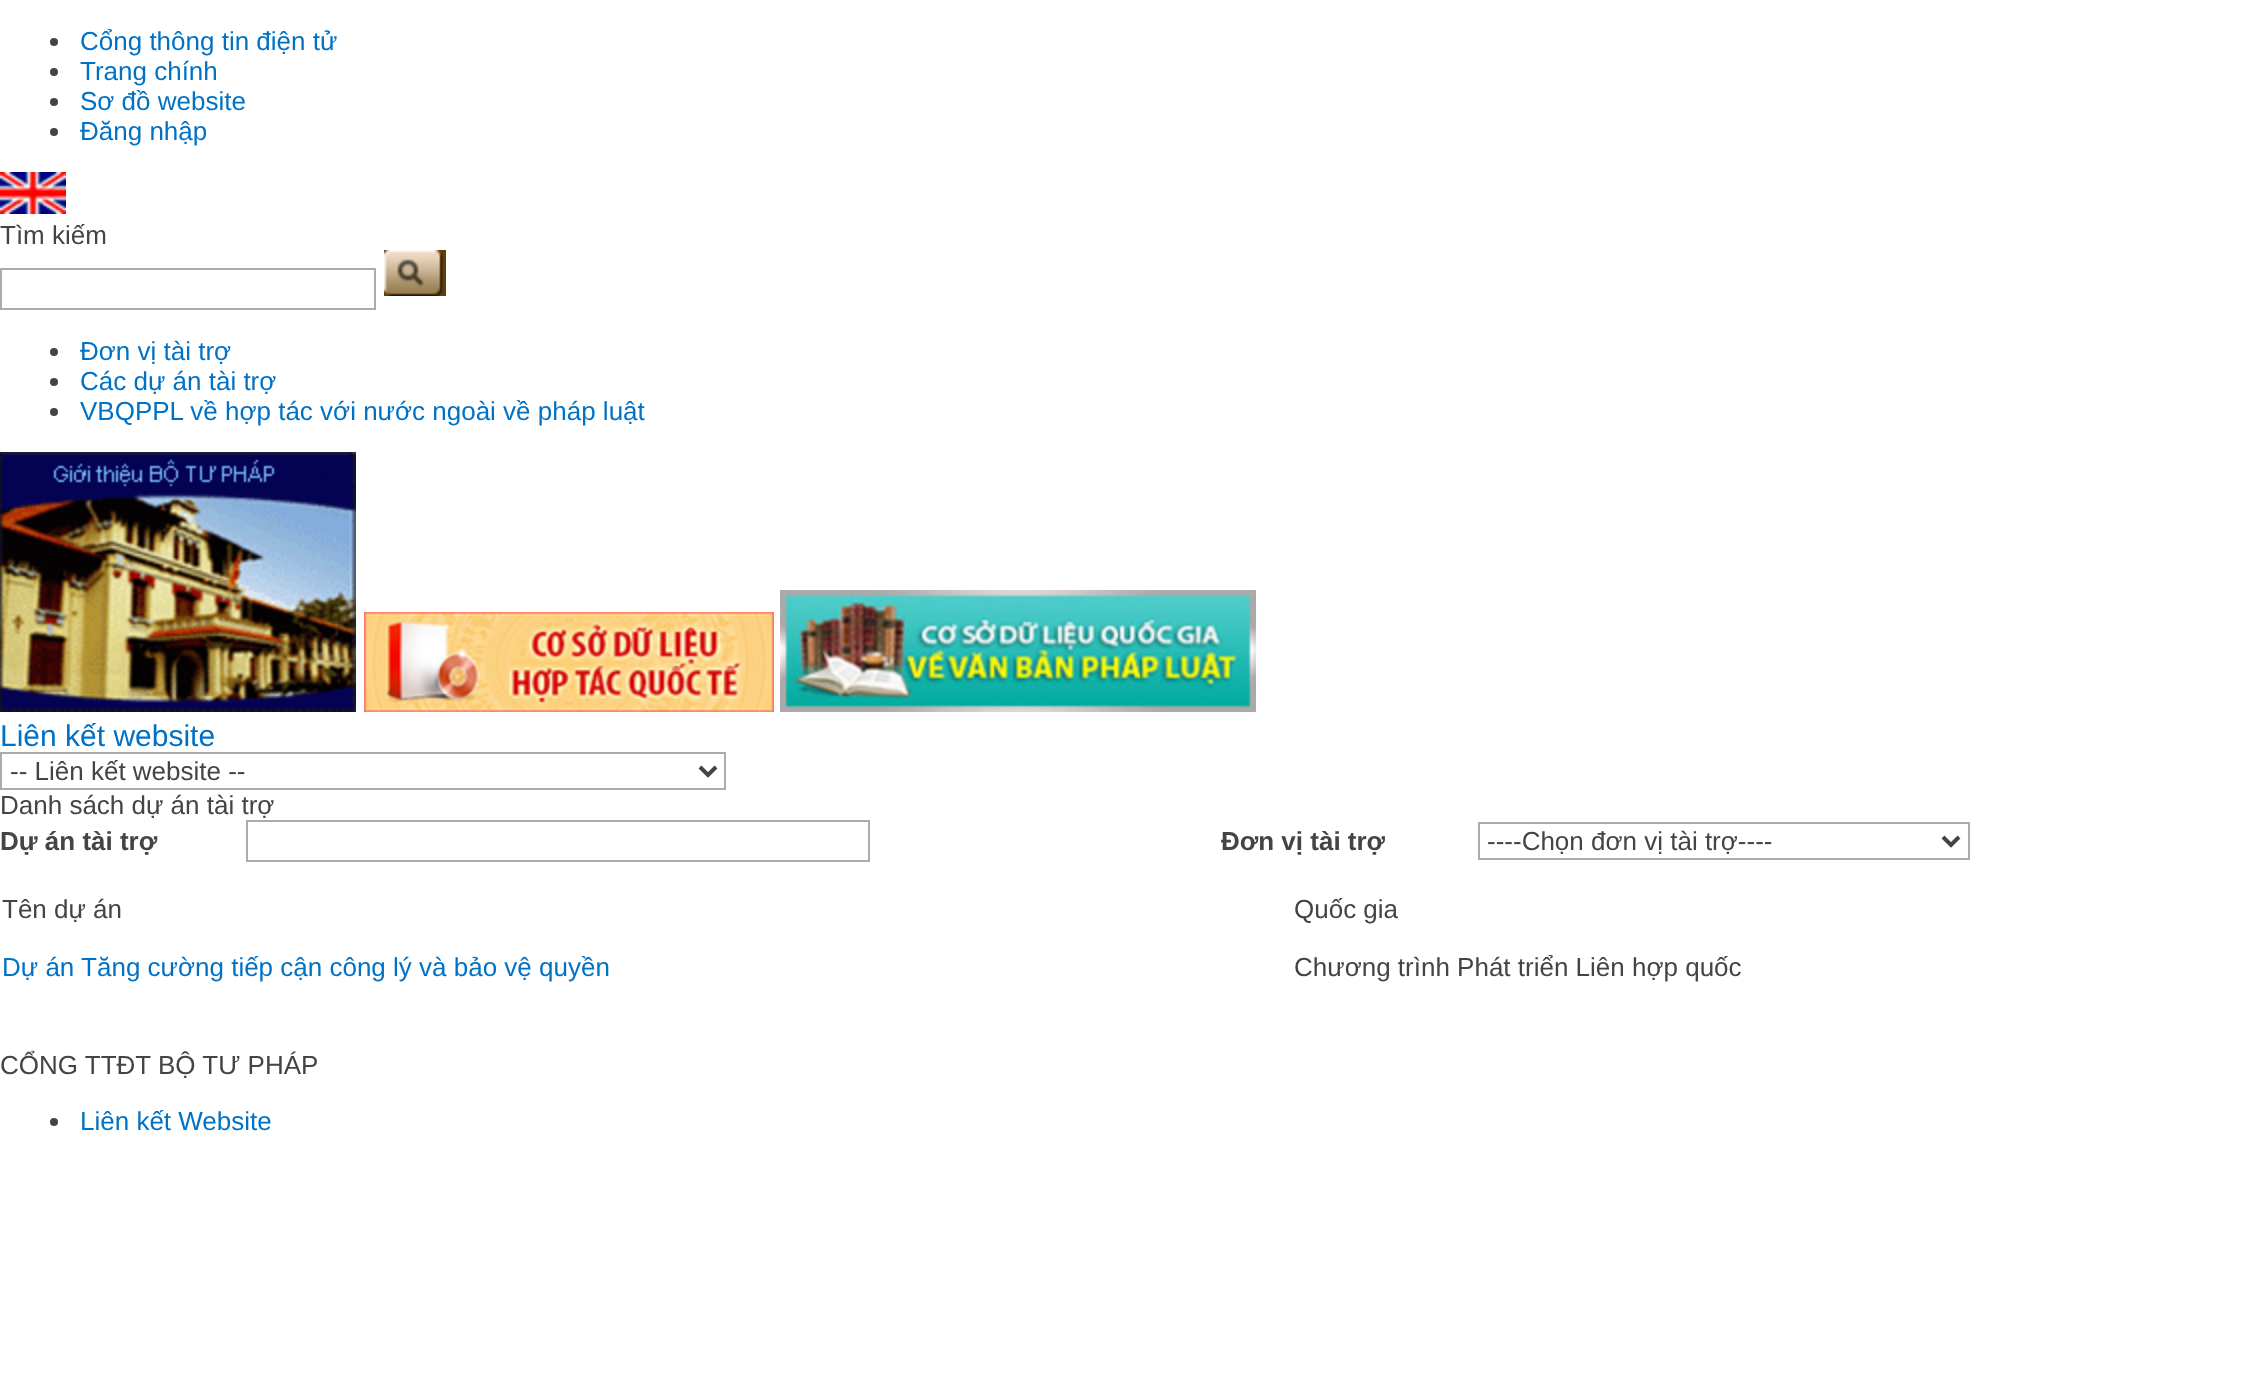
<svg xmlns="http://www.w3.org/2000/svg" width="2246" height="1397">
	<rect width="100%" height="100%" fill="#FFFFFF" />
	<circle cx="54" cy="42" r="4" fill="#444444" />
	<text x="80" y="50" font-family="Liberation Sans" font-size="26" fill="#0072C6">Cổng thông tin điện tử</text>
	<circle cx="54" cy="72" r="4" fill="#444444" />
	<text x="80" y="80" font-family="Liberation Sans" font-size="26" fill="#0072C6">Trang chính</text>
	<circle cx="54" cy="102" r="4" fill="#444444" />
	<text x="80" y="110" font-family="Liberation Sans" font-size="26" fill="#0072C6">Sơ đồ website</text>
	<circle cx="54" cy="132" r="4" fill="#444444" />
	<text x="80" y="140" font-family="Liberation Sans" font-size="26" fill="#0072C6">Đăng nhập</text>
	<image x="0" y="172" width="66" height="42" href="assets/img1.png" />
	<text x="0" y="244" font-family="Liberation Sans" font-size="26" fill="#444444">Tìm kiếm</text>
	<rect x="1" y="269" width="374" height="40" fill="none" stroke="#ABABAB" stroke-width="2" />
	<image x="384" y="250" width="62" height="46" href="assets/img2.png" />
	<circle cx="54" cy="352" r="4" fill="#444444" />
	<text x="80" y="360" font-family="Liberation Sans" font-size="26" fill="#0072C6">Đơn vị tài trợ</text>
	<circle cx="54" cy="382" r="4" fill="#444444" />
	<text x="80" y="390" font-family="Liberation Sans" font-size="26" fill="#0072C6">Các dự án tài trợ</text>
	<circle cx="54" cy="412" r="4" fill="#444444" />
	<text x="80" y="420" font-family="Liberation Sans" font-size="26" fill="#0072C6">VBQPPL về hợp tác với nước ngoài về pháp luật</text>
	<image x="0" y="452" width="356" height="260" href="assets/img3.png" />
	<image x="364" y="612" width="410" height="100" href="assets/img4.png" />
	<image x="780" y="590" width="476" height="122" href="assets/img5.png" />
	<text x="0" y="746" font-family="Liberation Sans" font-size="30" fill="#0072C6">Liên kết website</text>
	<rect x="1" y="753" width="724" height="36" fill="none" stroke="#ABABAB" stroke-width="2" />
	<path d="M700 767L708 775L716 767" fill="none" stroke="#444444" stroke-width="4" />
	<g font-family="Liberation Sans" font-size="26" fill="#444444">
		<text x="10" y="780">-- Liên kết website --</text>
		<text x="0" y="814">Danh sách dự án tài trợ</text>
	</g>
	<text x="0" y="850" font-family="Liberation Sans" font-size="26" font-weight="700" fill="#444444">Dự án tài trợ</text>
	<rect x="247" y="821" width="622" height="40" fill="none" stroke="#ABABAB" stroke-width="2" />
	<text x="1221" y="850" font-family="Liberation Sans" font-size="26" font-weight="700" fill="#444444">Đơn vị tài trợ</text>
	<rect x="1479" y="823" width="490" height="36" fill="none" stroke="#ABABAB" stroke-width="2" />
	<path d="M1943 837L1951 845L1959 837" fill="none" stroke="#444444" stroke-width="4" />
	<g font-family="Liberation Sans" font-size="26" fill="#444444">
		<text x="1487" y="850">----Chọn đơn vị tài trợ----</text>
		<text x="2" y="918">Tên dự án</text>
		<text x="1294" y="918">Quốc gia</text>
	</g>
	<text x="2" y="976" font-family="Liberation Sans" font-size="26" fill="#0072C6">Dự án Tăng cường tiếp cận công lý và bảo vệ quyền</text>
	<g font-family="Liberation Sans" font-size="26" fill="#444444">
		<text x="1294" y="976">Chương trình Phát triển Liên hợp quốc</text>
		<text x="0" y="1074">CỔNG TTĐT BỘ TƯ PHÁP</text>
	</g>
	<circle cx="54" cy="1122" r="4" fill="#444444" />
	<text x="80" y="1130" font-family="Liberation Sans" font-size="26" fill="#0072C6">Liên kết Website</text>
</svg>
